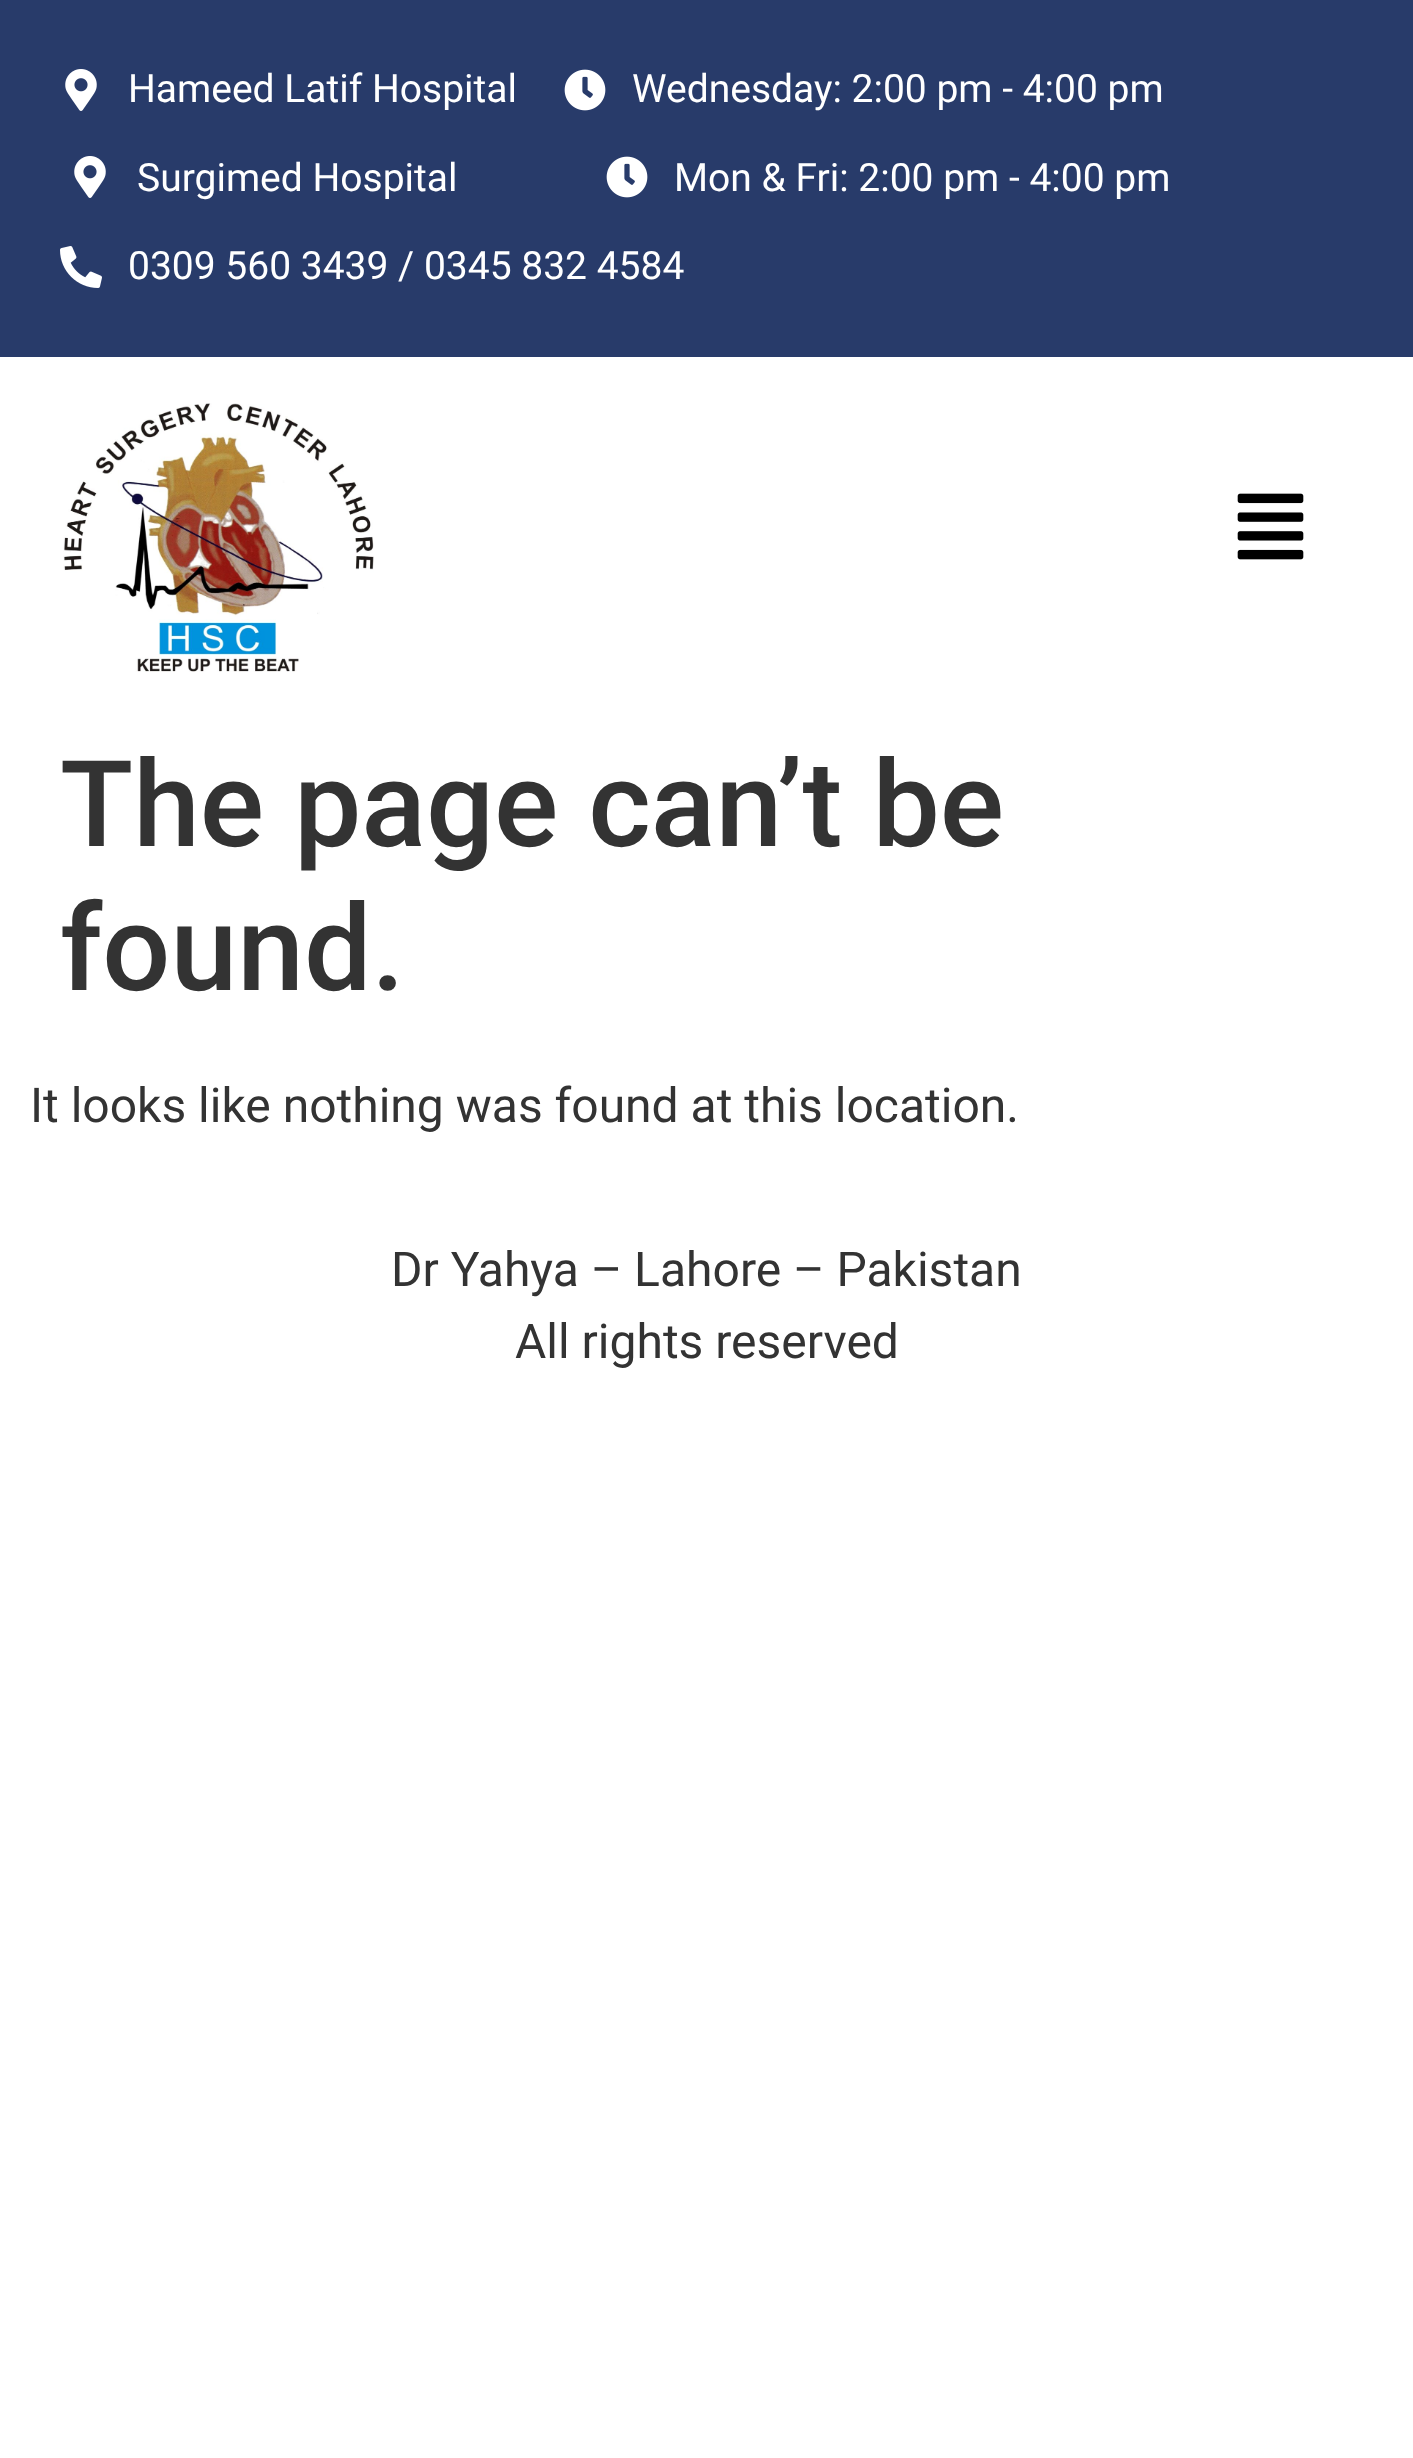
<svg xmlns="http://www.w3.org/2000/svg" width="1413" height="2458">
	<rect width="100%" height="100%" fill="#FFFFFF" />
	<rect x="0" y="0" width="1413" height="357" fill="#283B6A" />
	<image x="65" y="69" width="32" height="42" href="assets/img1.png" />
	<text x="128" y="102" font-family="Roboto" font-size="39" fill="#FFFFFF">Hameed Latif Hospital</text>
	<image x="564" y="69" width="42" height="42" href="assets/img2.png" />
	<text x="632" y="102" font-family="Roboto" font-size="39" fill="#FFFFFF">Wednesday: 2:00 pm - 4:00 pm</text>
	<image x="74" y="156" width="32" height="42" href="assets/img1.png" />
	<text x="137" y="191" font-family="Roboto" font-size="39" fill="#FFFFFF">Surgimed Hospital</text>
	<image x="606" y="156" width="42" height="42" href="assets/img2.png" />
	<text x="674" y="191" font-family="Roboto" font-size="39" fill="#FFFFFF">Mon &amp; Fri: 2:00 pm - 4:00 pm</text>
	<image x="60" y="246" width="42" height="42" href="assets/img3.png" />
	<text x="128" y="279" font-family="Roboto" font-size="39" fill="#FFFFFF">0309 560 3439 / 0345 832 4584</text>
	<image x="63" y="403" width="311" height="269" href="assets/img4.png" />
	<image x="1237" y="493" width="67" height="67" href="assets/img5.png" />
	<g font-family="Roboto" font-size="120" font-weight="500" fill="#333333">
		<text x="60" y="846">The page can’t be</text>
		<text x="60" y="990">found.</text>
	</g>
	<g font-family="Roboto" font-size="48" fill="#333333">
		<text x="30" y="1122">It looks like nothing was found at this location.</text>
		<text x="391" y="1286">Dr Yahya – Lahore – Pakistan</text>
		<text x="515" y="1358">All rights reserved</text>
	</g>
</svg>
